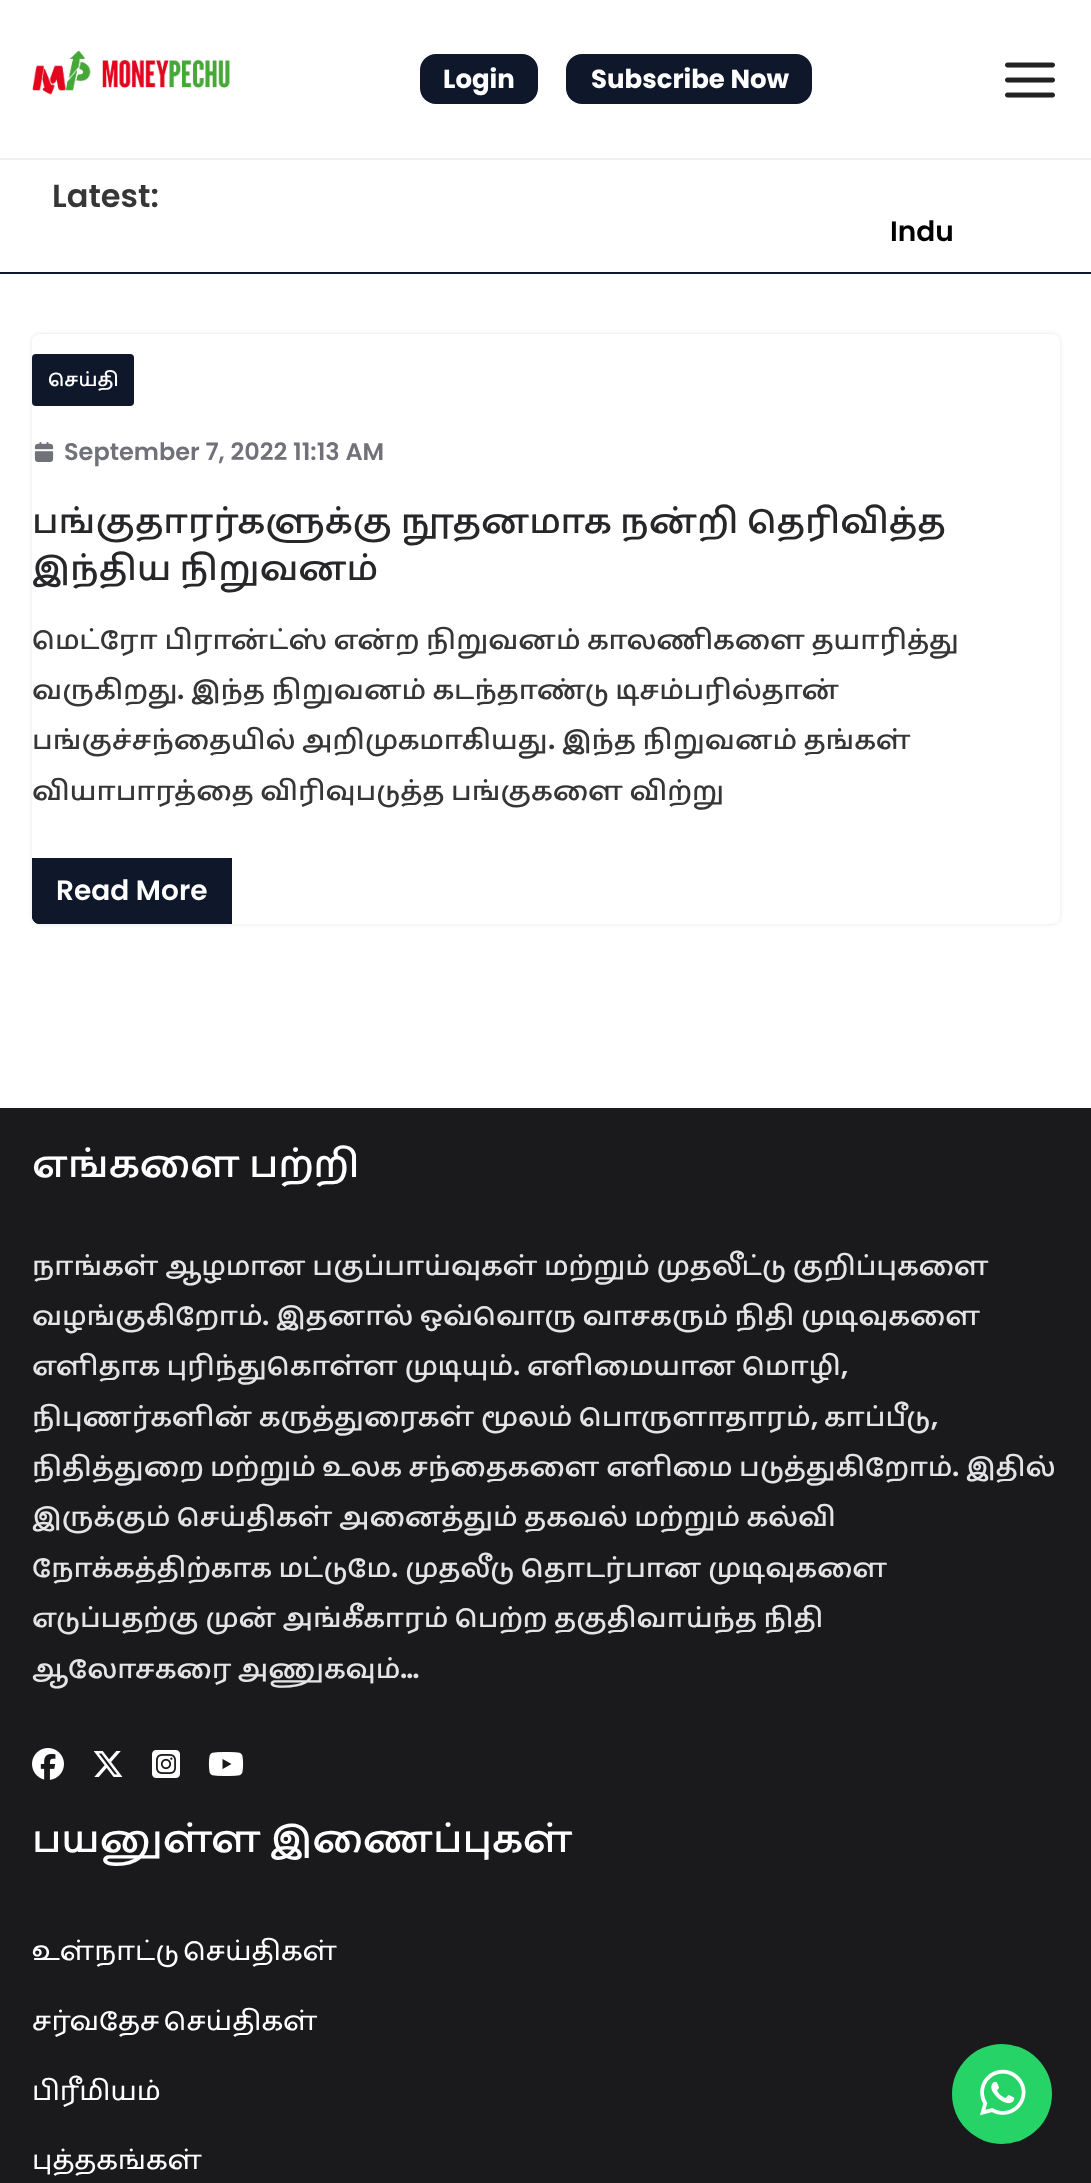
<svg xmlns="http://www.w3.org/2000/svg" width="1091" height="2183">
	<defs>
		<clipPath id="clip1"><path d="M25 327H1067V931H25ZM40 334H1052C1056.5 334 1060 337.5 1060 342V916C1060 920.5 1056.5 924 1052 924H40C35.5 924 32 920.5 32 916V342C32 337.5 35.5 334 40 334Z" clip-rule="evenodd" /></clipPath>
		<clipPath id="clip2"><rect x="32" y="334" width="1028" height="590" rx="8" /></clipPath>
	</defs>
	<rect width="100%" height="100%" fill="#FFFFFF" />
	<rect x="0" y="272" width="1091" height="2" fill="#0F172A" />
	<image x="32" y="50" width="198" height="45" href="assets/img1.png" />
	<rect x="420" y="54" width="118" height="50" rx="16" fill="#0F172A" />
	<text x="443" y="88" font-family="Poppins" font-size="26" font-weight="700" fill="#FFFFFF">Login</text>
	<rect x="566" y="54" width="246" height="50" rx="16" fill="#0F172A" />
	<text x="591" y="88" font-family="Poppins" font-size="26" font-weight="700" fill="#FFFFFF">Subscribe Now</text>
	<image x="1005" y="62" width="50" height="36" href="assets/img2.png" />
	<rect x="0" y="158" width="1091" height="2" fill="#EFEFEF" />
	<text x="52" y="207" font-family="Poppins" font-size="32" font-weight="600" fill="#363636">Latest:</text>
	<text x="890" y="241" font-family="Poppins" font-size="28" font-weight="600" fill="#000000">Indu</text>
	<g clip-path="url(#clip1)">
		<rect x="32" y="334" width="1028" height="590" rx="8" fill="#E4E4E7" filter="blur(2px)" />
	</g>
	<rect x="32" y="354" width="102" height="52" rx="4" fill="#0F172A" />
	<text x="48" y="386" font-family="Catamaran" font-size="20" font-weight="600" fill="#FFFFFF">செய்தி</text>
	<image x="34" y="442" width="20" height="20" href="assets/img3.png" />
	<text x="64" y="460" font-family="Poppins" font-size="24" font-weight="600" fill="#71717A">September 7, 2022 11:13 AM</text>
	<g font-family="Catamaran" font-size="36" font-weight="600" fill="#27272A">
		<text x="32" y="533" word-spacing="0.5">பங்குதாரர்களுக்கு நூதனமாக நன்றி தெரிவித்த</text>
		<text x="32" y="580">இந்திய நிறுவனம்</text>
	</g>
	<g font-family="Catamaran" font-size="28" font-weight="600" fill="#363636">
		<text x="32" y="649" word-spacing="0.25">மெட்ரோ பிரான்ட்ஸ் என்ற நிறுவனம் காலணிகளை தயாரித்து</text>
		<text x="32" y="699">வருகிறது</text>
	</g>
	<text x="177" y="699" font-family="Poppins" font-size="28" font-weight="600" fill="#363636">.</text>
	<g font-family="Catamaran" font-size="28" font-weight="600" fill="#363636">
		<text x="191" y="699" word-spacing="0.25">இந்த நிறுவனம் கடந்தாண்டு டிசம்பரில்தான்</text>
		<text x="32" y="749" word-spacing="0.25">பங்குச்சந்தையில் அறிமுகமாகியது</text>
	</g>
	<text x="548" y="749" font-family="Poppins" font-size="28" font-weight="600" fill="#363636">.</text>
	<text x="562" y="749" word-spacing="0.25" font-family="Catamaran" font-size="28" font-weight="600" fill="#363636">இந்த நிறுவனம் தங்கள்</text>
	<g clip-path="url(#clip2)">
		<text x="32" y="800" word-spacing="0.25" font-family="Catamaran" font-size="28" font-weight="600" fill="#363636">வியாபாரத்தை விரிவுபடுத்த பங்குகளை விற்று</text>
	</g>
	<path d="M32 858H232V924H40C35.5 924 32 920.5 32 916Z" fill="#111111" />
	<path d="M36 858H228C230 858 232 860 232 862V920C232 922 230 924 228 924H40C35.5 924 32 920.5 32 916V862C32 860 34 858 36 858Z" fill="#0F172A" />
	<text x="56" y="900" font-family="Poppins" font-size="28" font-weight="600" fill="#FFFFFF">Read More</text>
	<rect x="0" y="1108" width="1091" height="1075" fill="#1A1A1D" />
	<text x="32" y="1177" font-family="Catamaran" font-size="40" font-weight="600" fill="#FFFFFF">எங்களை பற்றி</text>
	<g font-family="Catamaran" font-size="28" font-weight="600" fill="#E4E4E7">
		<text x="32" y="1275" word-spacing="0.25">நாங்கள் ஆழமான பகுப்பாய்வுகள் மற்றும் முதலீட்டு குறிப்புகளை</text>
		<text x="32" y="1325">வழங்குகிறோம்</text>
	</g>
	<text x="262" y="1325" font-family="Poppins" font-size="28" font-weight="600" fill="#E4E4E7">.</text>
	<g font-family="Catamaran" font-size="28" font-weight="600" fill="#E4E4E7">
		<text x="276" y="1325" word-spacing="0.25">இதனால் ஒவ்வொரு வாசகரும் நிதி முடிவுகளை</text>
		<text x="32" y="1375" word-spacing="0.25">எளிதாக புரிந்துகொள்ள முடியும்</text>
	</g>
	<text x="513" y="1375" font-family="Poppins" font-size="28" font-weight="600" fill="#E4E4E7">.</text>
	<text x="527" y="1375" word-spacing="0.25" font-family="Catamaran" font-size="28" font-weight="600" fill="#E4E4E7">எளிமையான மொழி</text>
	<text x="841" y="1375" font-family="Poppins" font-size="28" font-weight="600" fill="#E4E4E7">,</text>
	<text x="32" y="1426" word-spacing="0.25" font-family="Catamaran" font-size="28" font-weight="600" fill="#E4E4E7">நிபுணர்களின் கருத்துரைகள் மூலம் பொருளாதாரம்</text>
	<text x="811" y="1426" font-family="Poppins" font-size="28" font-weight="600" fill="#E4E4E7">,</text>
	<text x="824" y="1426" font-family="Catamaran" font-size="28" font-weight="600" fill="#E4E4E7">காப்பீடு</text>
	<text x="931" y="1426" font-family="Poppins" font-size="28" font-weight="600" fill="#E4E4E7">,</text>
	<text x="32" y="1476" word-spacing="0.25" font-family="Catamaran" font-size="28" font-weight="600" fill="#E4E4E7">நிதித்துறை மற்றும் உலக சந்தைகளை எளிமை படுத்துகிறோம்</text>
	<text x="952" y="1476" font-family="Poppins" font-size="28" font-weight="600" fill="#E4E4E7">.</text>
	<g font-family="Catamaran" font-size="28" font-weight="600" fill="#E4E4E7">
		<text x="966" y="1476">இதில்</text>
		<text x="32" y="1526" word-spacing="0.25">இருக்கும் செய்திகள் அனைத்தும் தகவல் மற்றும் கல்வி</text>
		<text x="32" y="1577" word-spacing="0.25">நோக்கத்திற்காக மட்டுமே</text>
	</g>
	<text x="391" y="1577" font-family="Poppins" font-size="28" font-weight="600" fill="#E4E4E7">.</text>
	<g font-family="Catamaran" font-size="28" font-weight="600" fill="#E4E4E7">
		<text x="405" y="1577" word-spacing="0.25">முதலீடு தொடர்பான முடிவுகளை</text>
		<text x="32" y="1627" word-spacing="0.25">எடுப்பதற்கு முன் அங்கீகாரம் பெற்ற தகுதிவாய்ந்த நிதி</text>
		<text x="32" y="1678">ஆலோசகரை அணுகவும்</text>
	</g>
	<text x="400" y="1678" font-family="Poppins" font-size="28" font-weight="600" fill="#E4E4E7">…</text>
	<image x="32" y="1748" width="32" height="32" href="assets/img4.png" />
	<image x="93" y="1751" width="30" height="26" href="assets/img5.png" />
	<image x="152" y="1750" width="28" height="28" href="assets/img6.png" />
	<image x="208" y="1752" width="36" height="24" href="assets/img7.png" />
	<text x="32" y="1852" font-family="Catamaran" font-size="40" font-weight="600" fill="#FFFFFF">பயனுள்ள இணைப்புகள்</text>
	<g font-family="Catamaran" font-size="28" font-weight="500" fill="#FFFFFF">
		<text x="32" y="1960" word-spacing="-2">உள்நாட்டு செய்திகள்</text>
		<text x="32" y="2030" word-spacing="-2">சர்வதேச செய்திகள்</text>
		<text x="32" y="2100">பிரீமியம்</text>
		<text x="32" y="2169">புத்தகங்கள்</text>
	</g>
	<circle cx="1002" cy="2094" r="50" fill="#25D366" />
	<image x="980" y="2069" width="46" height="47" href="assets/img8.png" />
</svg>
